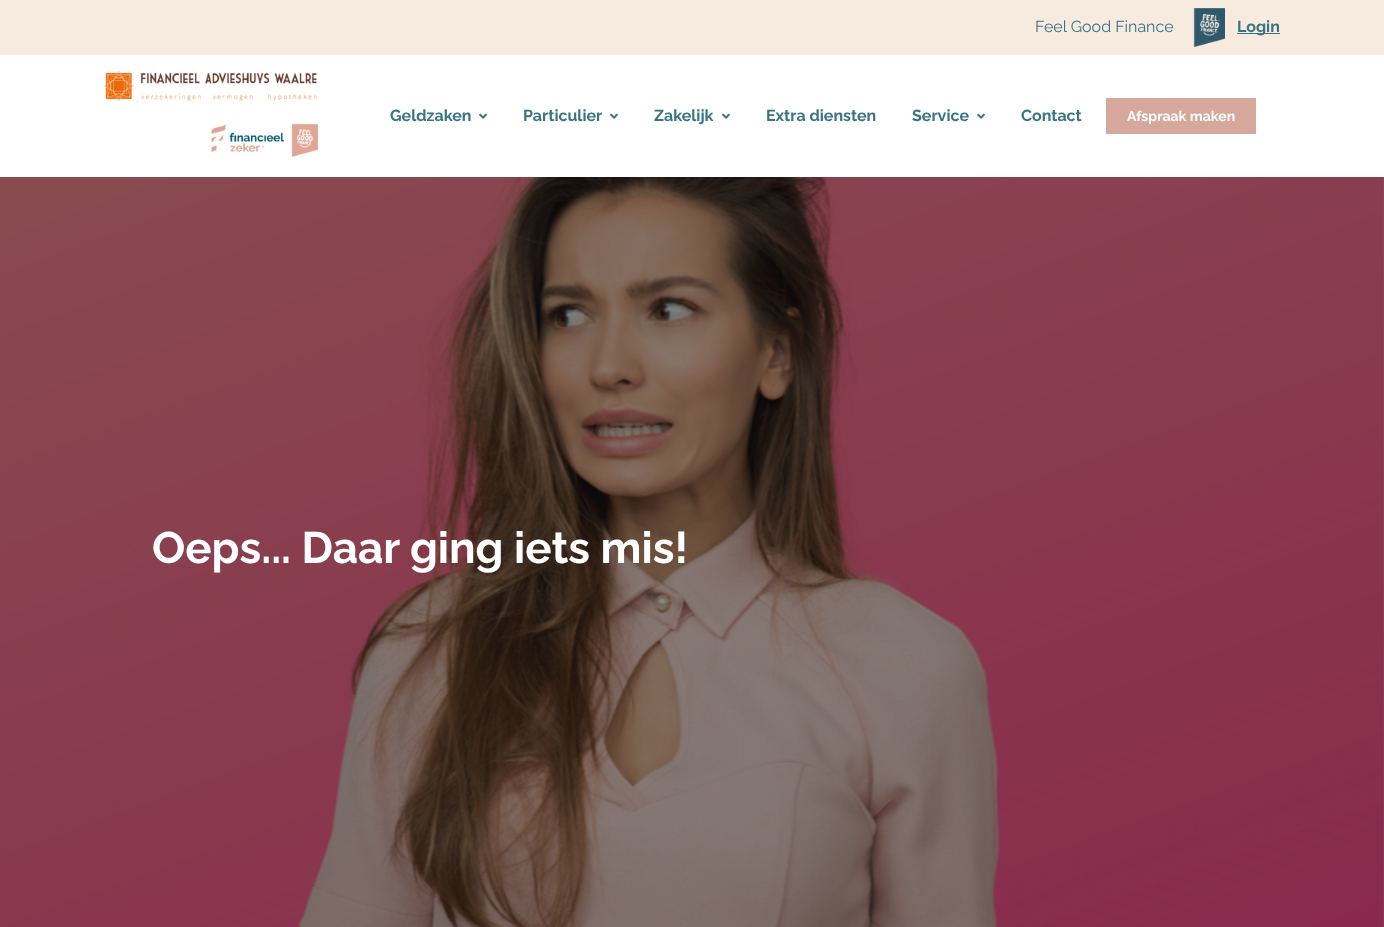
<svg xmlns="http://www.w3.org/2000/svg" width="1384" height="927">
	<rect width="100%" height="100%" fill="#FFFFFF" />
	<rect x="0" y="0" width="1384" height="55" fill="#F7EBDF" />
	<text x="1035" y="32" font-family="Raleway" font-size="16" fill="#397484">Feel Good Finance</text>
	<image x="1193" y="8" width="32" height="39" href="assets/img1.png" />
	<rect x="1237" y="33" width="43" height="1" fill="#397484" />
	<text x="1237" y="32" font-family="Raleway" font-size="16" font-weight="700" fill="#397484">Login</text>
	<image x="104" y="71" width="215" height="86" href="assets/img2.png" />
	<text x="390" y="121" font-family="Raleway" font-size="16" font-weight="700" fill="#397484">Geldzaken</text>
	<image x="479" y="113" width="8" height="6" href="assets/img3.png" />
	<text x="523" y="121" font-family="Raleway" font-size="16" font-weight="700" fill="#397484">Particulier</text>
	<image x="610" y="113" width="8" height="6" href="assets/img3.png" />
	<text x="654" y="121" font-family="Raleway" font-size="16" font-weight="700" fill="#397484">Zakelijk</text>
	<image x="722" y="113" width="8" height="6" href="assets/img3.png" />
	<g font-family="Raleway" font-size="16" font-weight="700" fill="#397484">
		<text x="766" y="121">Extra diensten</text>
		<text x="912" y="121">Service</text>
	</g>
	<image x="977" y="113" width="8" height="6" href="assets/img3.png" />
	<text x="1021" y="121" font-family="Raleway" font-size="16" font-weight="700" fill="#397484">Contact</text>
	<rect x="1106" y="98" width="150" height="36" fill="#D6A89B" />
	<text x="1127" y="121" font-family="Raleway" font-size="14" font-weight="700" fill="#FFFFFF">Afspraak maken</text>
	<image x="0" y="177" width="1384" height="750" href="assets/img4.png" />
	<text x="152" y="563" font-family="Raleway" font-size="44" font-weight="700" fill="#FFFFFF">Oeps... Daar ging iets mis!</text>
</svg>
